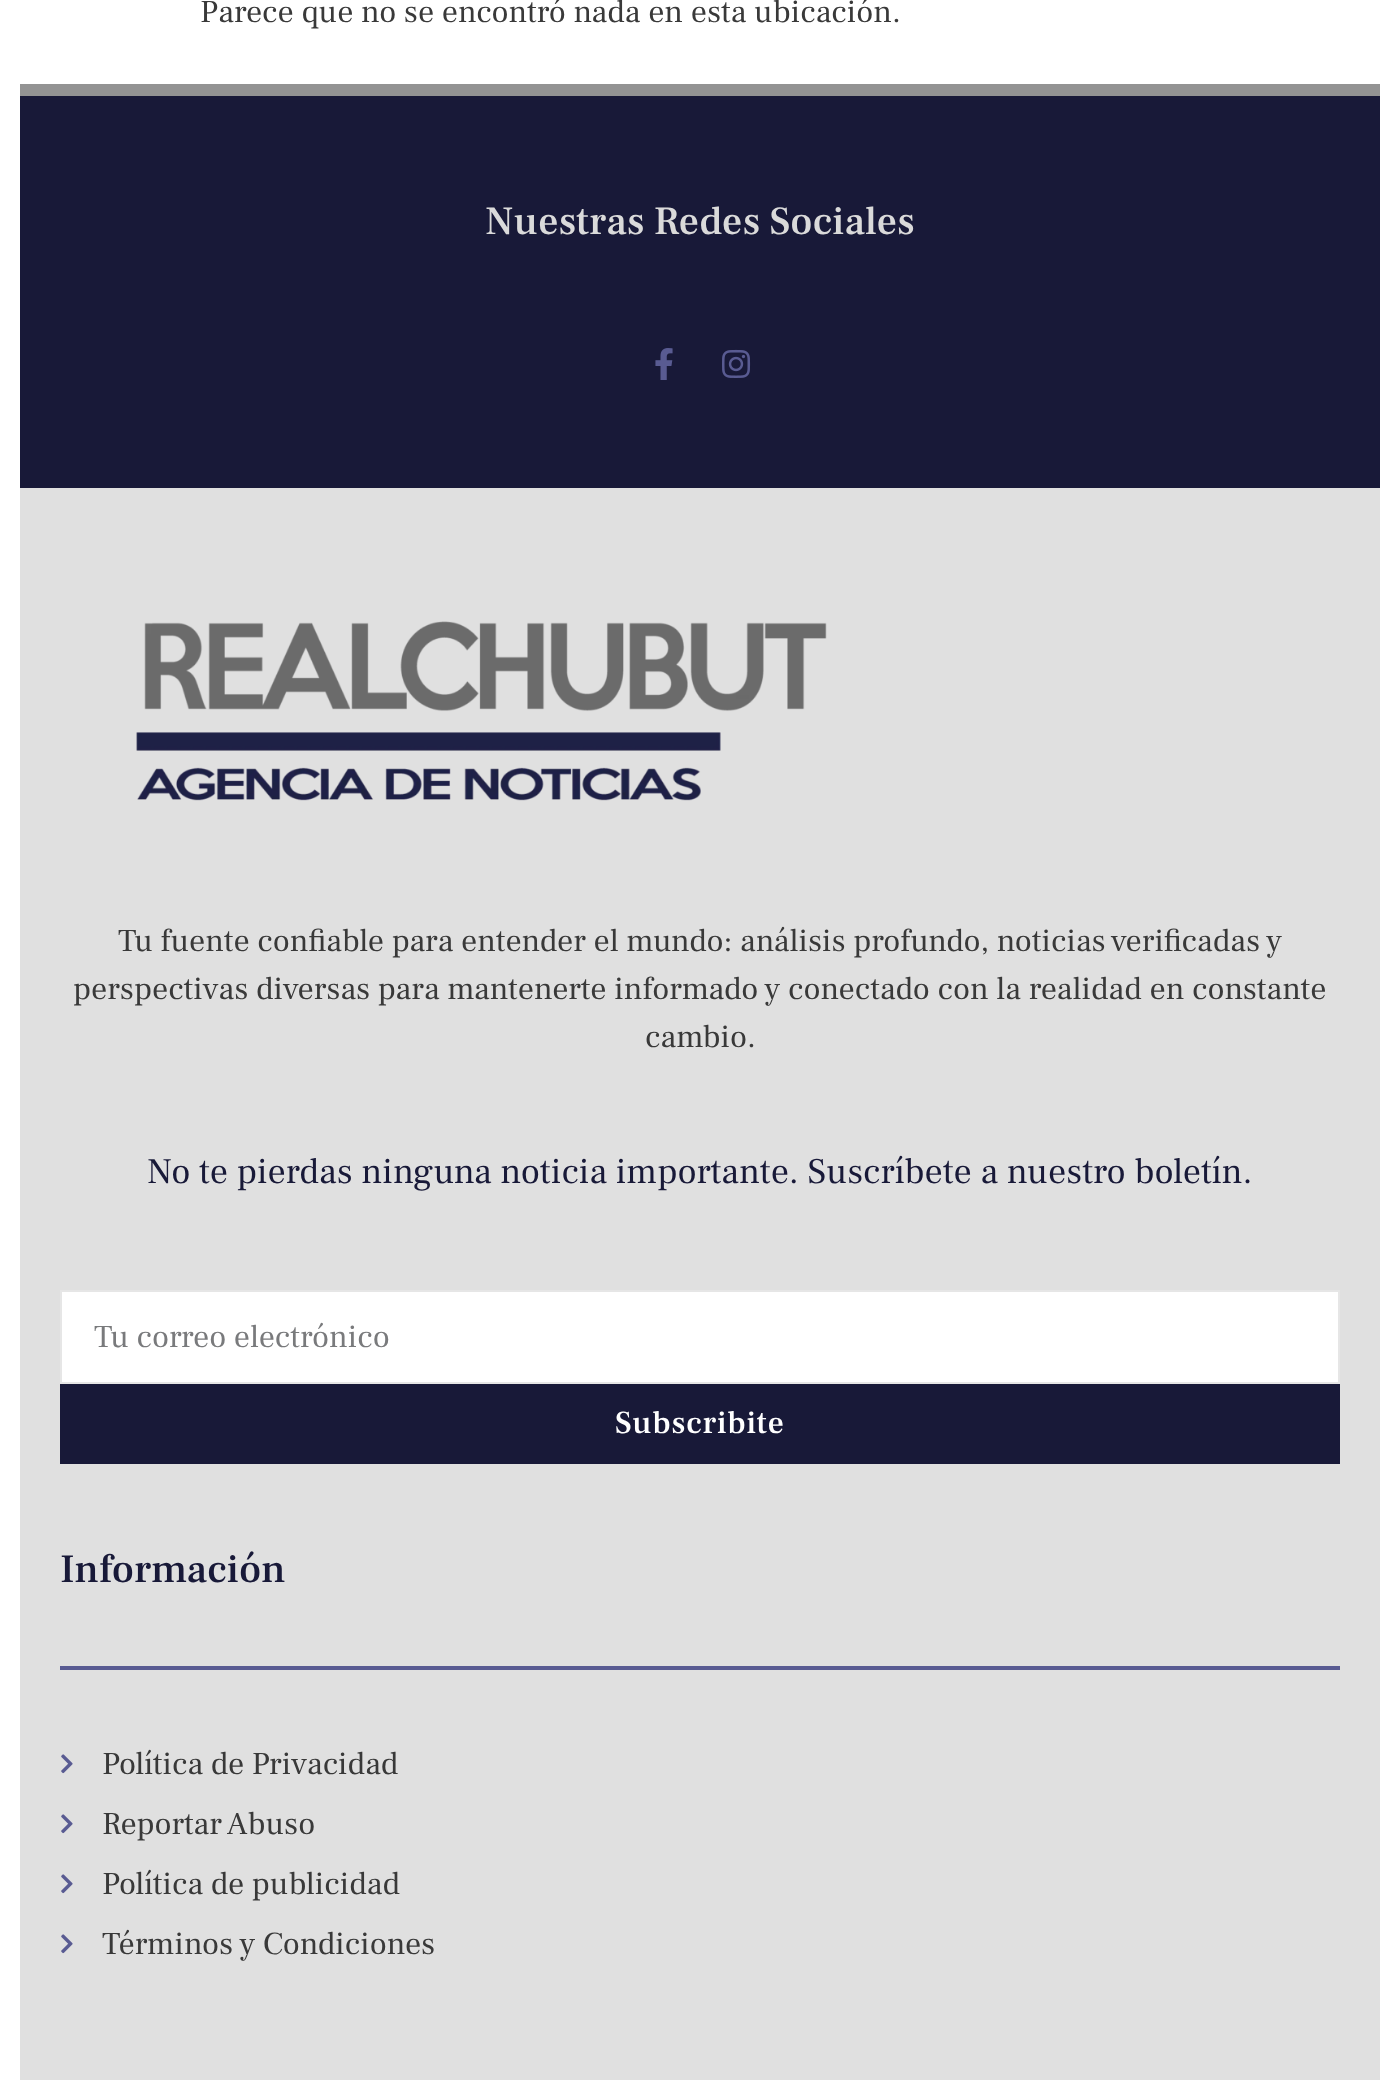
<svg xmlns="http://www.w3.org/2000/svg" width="1399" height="2080">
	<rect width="100%" height="100%" fill="#FFFFFF" />
	<text x="200" y="22" font-family="Frank Ruhl Libre" font-size="32" fill="#393939">Parece que no se encontró nada en esta ubicación.</text>
	<rect x="20" y="96" width="1360" height="392" fill="#181938" />
	<rect x="20" y="84" width="1360" height="12" fill="#939393" />
	<text x="485" y="234" font-family="Frank Ruhl Libre" font-size="40" font-weight="500" fill="#DADADA">Nuestras Redes Sociales</text>
	<image x="655" y="348" width="18" height="32" href="assets/img1.png" />
	<image x="722" y="349" width="29" height="29" href="assets/img2.png" />
	<rect x="20" y="488" width="1360" height="1592" fill="#E0E0E0" />
	<image x="136" y="621" width="691" height="180" href="assets/img3.png" />
	<g font-family="Frank Ruhl Libre" font-size="32" fill="#393939">
		<text x="118" y="951">Tu fuente confiable para entender el mundo: análisis profundo, noticias verificadas y</text>
		<text x="73" y="999">perspectivas diversas para mantenerte informado y conectado con la realidad en constante</text>
		<text x="645" y="1047">cambio.</text>
	</g>
	<text x="147" y="1183" font-family="Frank Ruhl Libre" font-size="36" fill="#181938">No te pierdas ninguna noticia importante. Suscríbete a nuestro boletín.</text>
	<rect x="61" y="1291" width="1278" height="92" fill="#FFFFFF" stroke="#E6E6E6" stroke-width="2" />
	<text x="94" y="1347" font-family="Frank Ruhl Libre" font-size="32" fill="#797A7C">Tu correo electrónico</text>
	<rect x="60" y="1384" width="1280" height="80" fill="#181938" />
	<text x="615" y="1433" font-family="Frank Ruhl Libre" font-size="32" font-weight="500" letter-spacing="0.6" fill="#FFFFFF">Subscribite</text>
	<text x="60" y="1582" font-family="Frank Ruhl Libre" font-size="40" font-weight="500" fill="#181938">Información</text>
	<rect x="60" y="1666" width="1280" height="4" fill="#595B92" />
	<image x="61" y="1754" width="12" height="20" href="assets/img4.png" />
	<text x="102" y="1774" font-family="Frank Ruhl Libre" font-size="32" fill="#393939">Política de Privacidad</text>
	<image x="61" y="1814" width="12" height="20" href="assets/img4.png" />
	<text x="102" y="1834" font-family="Frank Ruhl Libre" font-size="32" fill="#393939">Reportar Abuso</text>
	<image x="61" y="1874" width="12" height="20" href="assets/img4.png" />
	<text x="102" y="1894" font-family="Frank Ruhl Libre" font-size="32" fill="#393939">Política de publicidad</text>
	<image x="61" y="1934" width="12" height="20" href="assets/img4.png" />
	<text x="102" y="1954" font-family="Frank Ruhl Libre" font-size="32" fill="#393939">Términos y Condiciones</text>
</svg>
